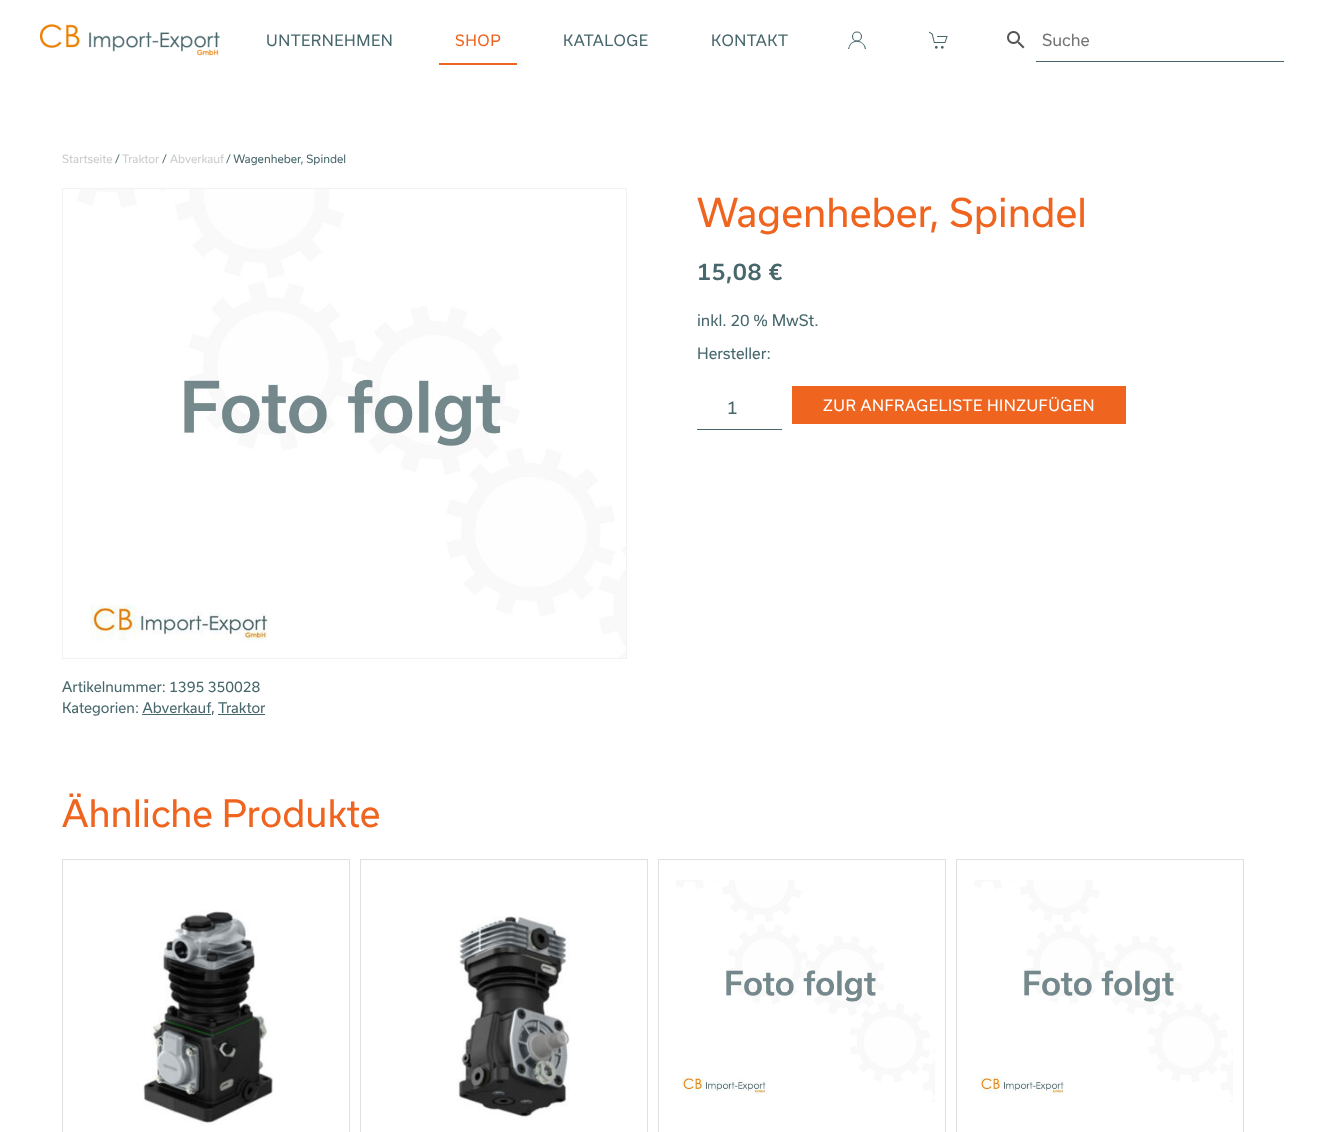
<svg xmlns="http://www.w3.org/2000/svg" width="1324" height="1132">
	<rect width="100%" height="100%" fill="#FFFFFF" />
	<image x="40" y="24" width="180" height="32" href="assets/img1.png" />
	<text x="266" y="46" font-family="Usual" font-size="15" letter-spacing="0.5" fill="#47676C">UNTERNEHMEN</text>
	<text x="455" y="46" font-family="Usual" font-size="15" letter-spacing="0.5" fill="#EF641F">SHOP</text>
	<rect x="439" y="63" width="78" height="2" fill="#EF641F" />
	<g font-family="Usual" font-size="15" letter-spacing="0.5" fill="#47676C">
		<text x="563" y="46">KATALOGE</text>
		<text x="711" y="46">KONTAKT</text>
	</g>
	<circle cx="857" cy="36.5" r="4.5" fill="none" stroke="#47676C" stroke-width="1.1" />
	<path d="M848.5 49C850.5 38.5 863.5 39 865.5 49" fill="none" stroke="#47676C" stroke-width="1.1" />
	<image x="929" y="31" width="19" height="18" href="assets/img2.png" />
	<image x="1007" y="31" width="18" height="18" href="assets/img3.png" />
	<rect x="1036" y="61" width="248" height="1" fill="#47676C" />
	<text x="1042" y="46" font-family="Usual" font-size="16" fill="#757575">Suche</text>
	<text x="62" y="163" font-family="Usual" font-size="11" fill="#CCCCCE">Startseite</text>
	<text x="115" y="163" font-family="Usual" font-size="11" fill="#47676C">/</text>
	<text x="122" y="163" font-family="Usual" font-size="11" fill="#CCCCCE">Traktor</text>
	<text x="162" y="163" font-family="Usual" font-size="11" fill="#47676C">/</text>
	<text x="170" y="163" font-family="Usual" font-size="11" fill="#CCCCCE">Abverkauf</text>
	<text x="226" y="163" font-family="Usual" font-size="11" fill="#47676C">/ Wagenheber, Spindel</text>
	<text x="697" y="227" font-family="Usual" font-size="38" fill="#EF641F">Wagenheber, Spindel</text>
	<text x="697" y="280" font-family="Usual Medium" font-size="22" font-weight="500" letter-spacing="0.5" fill="#47676C">15,08 €</text>
	<text x="697" y="326" font-family="Usual" font-size="15.25" fill="#47676C">inkl. 20 % MwSt.</text>
	<text x="697" y="359" font-family="Usual" font-size="15" fill="#47676C">Hersteller:</text>
	<rect x="697" y="429" width="85" height="1" fill="#47676C" />
	<text x="727" y="414" font-family="Usual" font-size="17" fill="#47676C">1</text>
	<rect x="792" y="386" width="334" height="38" fill="#EF641F" />
	<text x="823" y="411" font-family="Usual" font-size="15" letter-spacing="0.5" fill="#FFFFFF">ZUR ANFRAGELISTE HINZUFÜGEN</text>
	<rect x="62.5" y="188.5" width="564" height="470" fill="none" stroke="#F2F2F2" />
	<image x="77" y="189" width="549" height="469" href="assets/img4.png" />
	<g font-family="Usual" font-size="14" fill="#47676C">
		<text x="62" y="692">Artikelnummer: 1395 350028</text>
		<text x="62" y="713">Kategorien: Abverkauf</text>
		<text x="211" y="713">,</text>
		<text x="218" y="713">Traktor</text>
	</g>
	<rect x="218" y="714" width="47" height="1" fill="#47676C" />
	<rect x="142" y="714" width="69" height="1" fill="#47676C" />
	<text x="62" y="827" font-family="Usual" font-size="36" fill="#EF641F">Ähnliche Produkte</text>
	<rect x="62.5" y="859.5" width="287" height="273" fill="none" stroke="#DFDFDF" />
	<image x="143" y="910" width="131" height="216" href="assets/img5.png" />
	<rect x="360.5" y="859.5" width="287" height="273" fill="none" stroke="#DFDFDF" />
	<image x="456" y="916" width="114" height="204" href="assets/img6.png" />
	<rect x="658.5" y="859.5" width="287" height="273" fill="none" stroke="#DFDFDF" />
	<image x="676" y="880" width="259" height="222" href="assets/img7.png" />
	<rect x="956.5" y="859.5" width="287" height="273" fill="none" stroke="#DFDFDF" />
	<image x="974" y="880" width="259" height="222" href="assets/img7.png" />
</svg>
